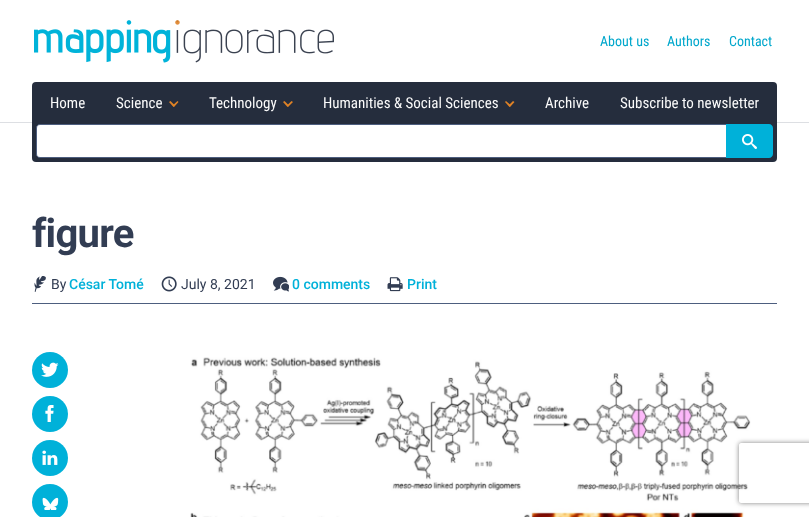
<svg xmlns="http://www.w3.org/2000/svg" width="809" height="517">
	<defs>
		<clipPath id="clip1"><path d="M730 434H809V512H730ZM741 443H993C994 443 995 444 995 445V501C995 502 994 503 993 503H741C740 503 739 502 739 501V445C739 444 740 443 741 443Z" clip-rule="evenodd" /></clipPath>
	</defs>
	<rect width="100%" height="100%" fill="#FFFFFF" />
	<image x="34" y="20" width="300" height="43" href="assets/img1.png" />
	<g font-family="Roboto Condensed" font-size="14" fill="#00A7CC">
		<text x="600" y="46">About us</text>
		<text x="667" y="46">Authors</text>
		<text x="729" y="46">Contact</text>
	</g>
	<rect x="0" y="122" width="809" height="1" fill="#DDDFE3" />
	<rect x="32" y="82" width="745" height="80" rx="4" fill="#252D3D" />
	<g font-family="Roboto Condensed" font-size="15" fill="#FAFAFA">
		<text x="50" y="108">Home</text>
		<text x="116" y="108">Science</text>
	</g>
	<path d="M172.5 105.5L177.5 101L178.5 102L174 107Z" fill="#DF8226" />
	<path d="M169 102L170.5 101L175 105.5L173.5 107Z" fill="#DF8226" />
	<text x="209" y="108" font-family="Roboto Condensed" font-size="15" fill="#FAFAFA">Technology</text>
	<path d="M287 105.5L291.5 101L293 102L288 107Z" fill="#DF8226" />
	<path d="M283 102L284.5 101L289 105.5L287.5 107Z" fill="#DF8226" />
	<text x="323" y="108" font-family="Roboto Condensed" font-size="15" fill="#FAFAFA">Humanities &amp; Social Sciences</text>
	<path d="M508.5 105.5L513 101L514.5 102L510 107Z" fill="#DF8226" />
	<path d="M505 102L506 101L511 105.5L509.5 107Z" fill="#DF8226" />
	<g font-family="Roboto Condensed" font-size="15" fill="#FAFAFA">
		<text x="545" y="108">Archive</text>
		<text x="620" y="108">Subscribe to newsletter</text>
	</g>
	<path d="M40 124.5H726.5V157.5H40C38 157.5 36.5 156 36.5 154V128C36.5 126 38 124.5 40 124.5Z" fill="#FFFFFF" stroke="#4D5E7F" />
	<path d="M726 124H769C771 124 773 126 773 128V154C773 156 771 158 769 158H726Z" fill="#00B1D9" />
	<image x="742" y="134" width="15" height="15" href="assets/img2.png" />
	<text x="32" y="247" font-family="Roboto" font-size="40" font-weight="700" letter-spacing="-0.75" fill="#323D53">figure</text>
	<image x="34" y="276" width="12" height="16" href="assets/img3.png" />
	<text x="51" y="289" font-family="Roboto" font-size="14" fill="#323D53">By</text>
	<text x="69" y="289" font-family="Roboto" font-size="14" font-weight="500" fill="#00B1D9">César Tomé</text>
	<image x="161" y="276" width="16" height="16" href="assets/img4.png" />
	<text x="181" y="289" font-family="Roboto" font-size="14" fill="#323D53">July 8, 2021</text>
	<image x="273" y="276" width="16" height="16" href="assets/img5.png" />
	<text x="292" y="289" font-family="Roboto" font-size="14" font-weight="500" fill="#00B1D9">0 comments</text>
	<image x="387" y="277" width="16" height="15" href="assets/img6.png" />
	<text x="407" y="289" font-family="Roboto" font-size="14" font-weight="500" fill="#00B1D9">Print</text>
	<rect x="32" y="303" width="745" height="1" fill="#4D5E7F" />
	<circle cx="50" cy="370" r="18" fill="#00B1D9" />
	<image x="41" y="362" width="18" height="15" href="assets/img7.png" />
	<circle cx="50" cy="414" r="18" fill="#00B1D9" />
	<image x="45" y="405" width="9" height="17" href="assets/img8.png" />
	<circle cx="50" cy="458" r="18" fill="#00B1D9" />
	<image x="42" y="450" width="16" height="15" href="assets/img9.png" />
	<circle cx="50" cy="502" r="18" fill="#00B1D9" />
	<image x="42" y="497" width="17" height="13" href="assets/img10.png" />
	<image x="190" y="357" width="561" height="160" href="assets/img11.png" />
	<g clip-path="url(#clip1)">
		<rect x="739" y="443" width="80" height="60" rx="2" fill="#808080" filter="blur(2.5px)" />
	</g>
</svg>
